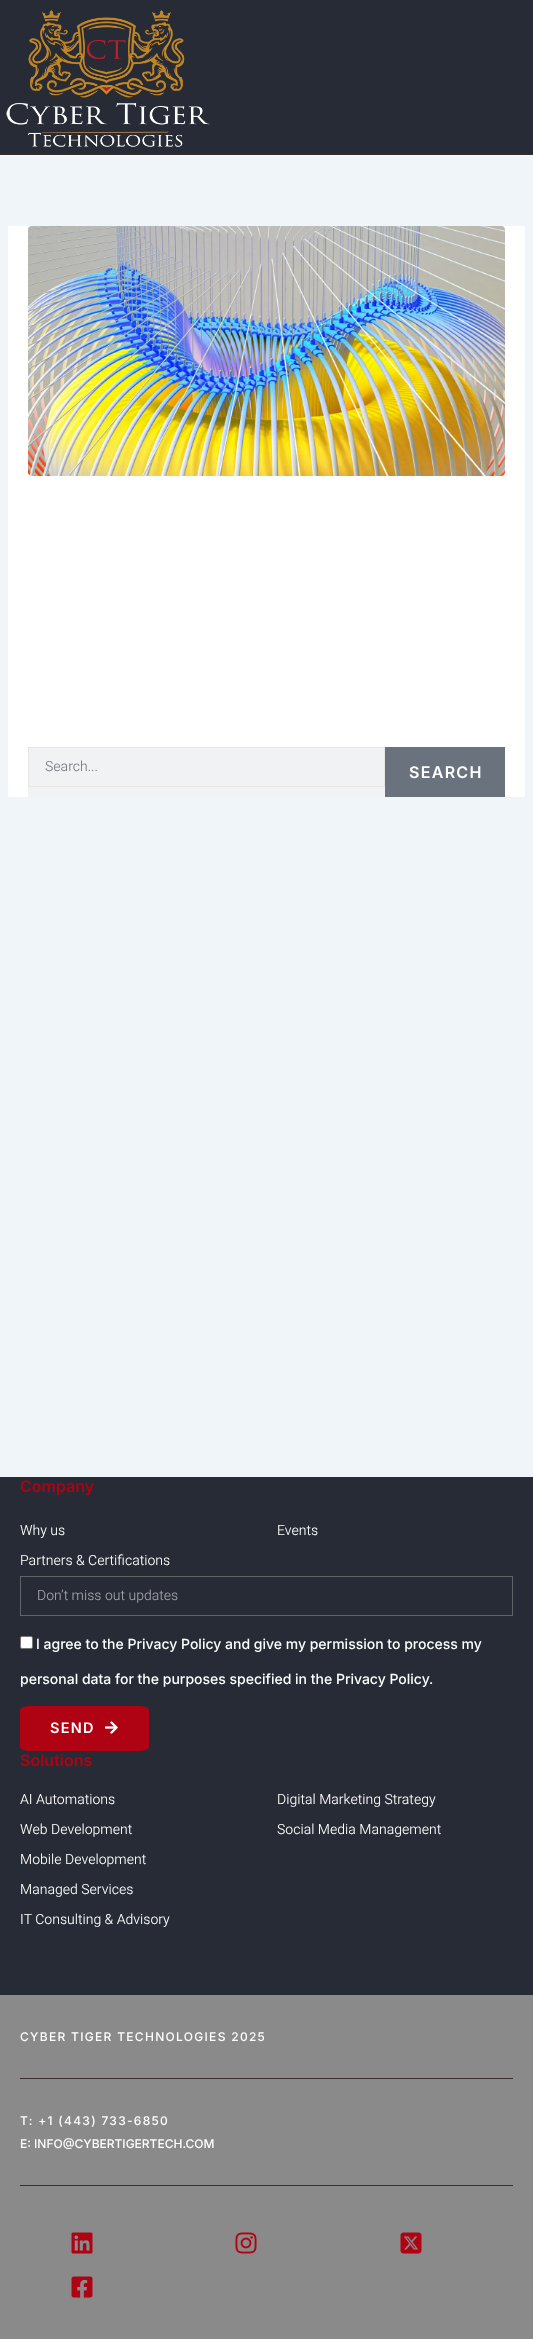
<svg xmlns="http://www.w3.org/2000/svg" width="533" height="2339">
	<rect width="100%" height="100%" fill="#F0F5FA" />
	<rect x="0" y="0" width="533" height="154" fill="#272B36" />
	<rect x="0" y="154" width="533" height="1" fill="#3A3030" />
	<image x="6" y="10" width="204" height="137" href="assets/img1.png" />
	<rect x="8" y="226" width="517" height="571" fill="#FFFFFF" />
	<image x="28" y="226" width="477" height="250" href="assets/img2.png" />
	<rect x="28" y="748" width="357" height="49" fill="#F1F2F3" />
	<rect x="28.5" y="747.5" width="356" height="39" fill="none" stroke="#E6E6E6" />
	<text x="45" y="771" font-family="Heebo" font-size="14" font-weight="300" fill="#787B82">Search...</text>
	<rect x="385" y="747" width="120" height="50" fill="#69727D" />
	<text x="409" y="778" font-family="Inter" font-size="16" font-weight="600" letter-spacing="1.3" fill="#FFFFFF">SEARCH</text>
	<rect x="0" y="1477" width="533" height="518" fill="#272B36" />
	<text x="20" y="1492" font-family="Inter" font-size="16" font-weight="600" fill="#AF0314">Company</text>
	<g font-family="Heebo" font-size="14" font-weight="300" fill="#FFFFFF">
		<text x="20" y="1535">Why us</text>
		<text x="20" y="1565">Partners &amp; Certifications</text>
		<text x="277" y="1535">Events</text>
	</g>
	<rect x="20.5" y="1576.5" width="492" height="39" fill="none" stroke="#5F6567" />
	<text x="37" y="1600" font-family="Heebo" font-size="14" font-weight="300" fill="#A3A4A9">Don’t miss out updates</text>
	<rect x="20.5" y="1636.5" width="12" height="12" rx="1.5" fill="#FFFFFF" stroke="#767676" />
	<g font-family="Inter" font-size="14" font-weight="500" fill="#FFFFFF">
		<text x="36" y="1649">I agree to the Privacy Policy and give my permission to process my</text>
		<text x="20" y="1684">personal data for the purposes specified in the Privacy Policy.</text>
	</g>
	<path d="M30 1706H139C144 1706 149 1708 149 1710V1747C149 1749 144 1751 139 1751H30C25 1751 20 1749 20 1747V1710C20 1708 25 1706 30 1706Z" fill="#AF0314" />
	<text x="50" y="1733" font-family="Inter" font-size="14.5" font-weight="600" letter-spacing="1.3" fill="#FFFFFF">SEND</text>
	<image x="105" y="1721" width="13" height="13" href="assets/img3.png" />
	<text x="20" y="1766" font-family="Inter" font-size="16" font-weight="600" fill="#AF0314">Solutions</text>
	<g font-family="Heebo" font-size="14" font-weight="300" fill="#FFFFFF">
		<text x="20" y="1804">AI Automations</text>
		<text x="20" y="1834">Web Development</text>
		<text x="20" y="1864">Mobile Development</text>
		<text x="20" y="1894">Managed Services</text>
		<text x="20" y="1924">IT Consulting &amp; Advisory</text>
		<text x="277" y="1804">Digital Marketing Strategy</text>
		<text x="277" y="1834">Social Media Management</text>
	</g>
	<rect x="0" y="1995" width="533" height="344" fill="#8A8A8A" />
	<rect x="20" y="2078" width="493" height="1" fill="#3A3030" />
	<g font-family="Inter" font-size="12" font-weight="500" letter-spacing="1.3" fill="#FFFFFF">
		<text x="20" y="2041">CYBER TIGER TECHNOLOGIES 2025</text>
		<text x="20" y="2125">T: +1 (443) 733-6850</text>
	</g>
	<rect x="20" y="2185" width="493" height="1" fill="#3A3030" />
	<text x="20" y="2148" font-family="Inter" font-size="12" font-weight="500" fill="#FFFFFF">E: INFO@CYBERTIGERTECH.COM</text>
	<image x="71" y="2232" width="22" height="22" href="assets/img4.png" />
	<image x="235" y="2232" width="22" height="22" href="assets/img5.png" />
	<image x="400" y="2232" width="22" height="22" href="assets/img6.png" />
	<image x="71" y="2276" width="22" height="22" href="assets/img7.png" />
</svg>
